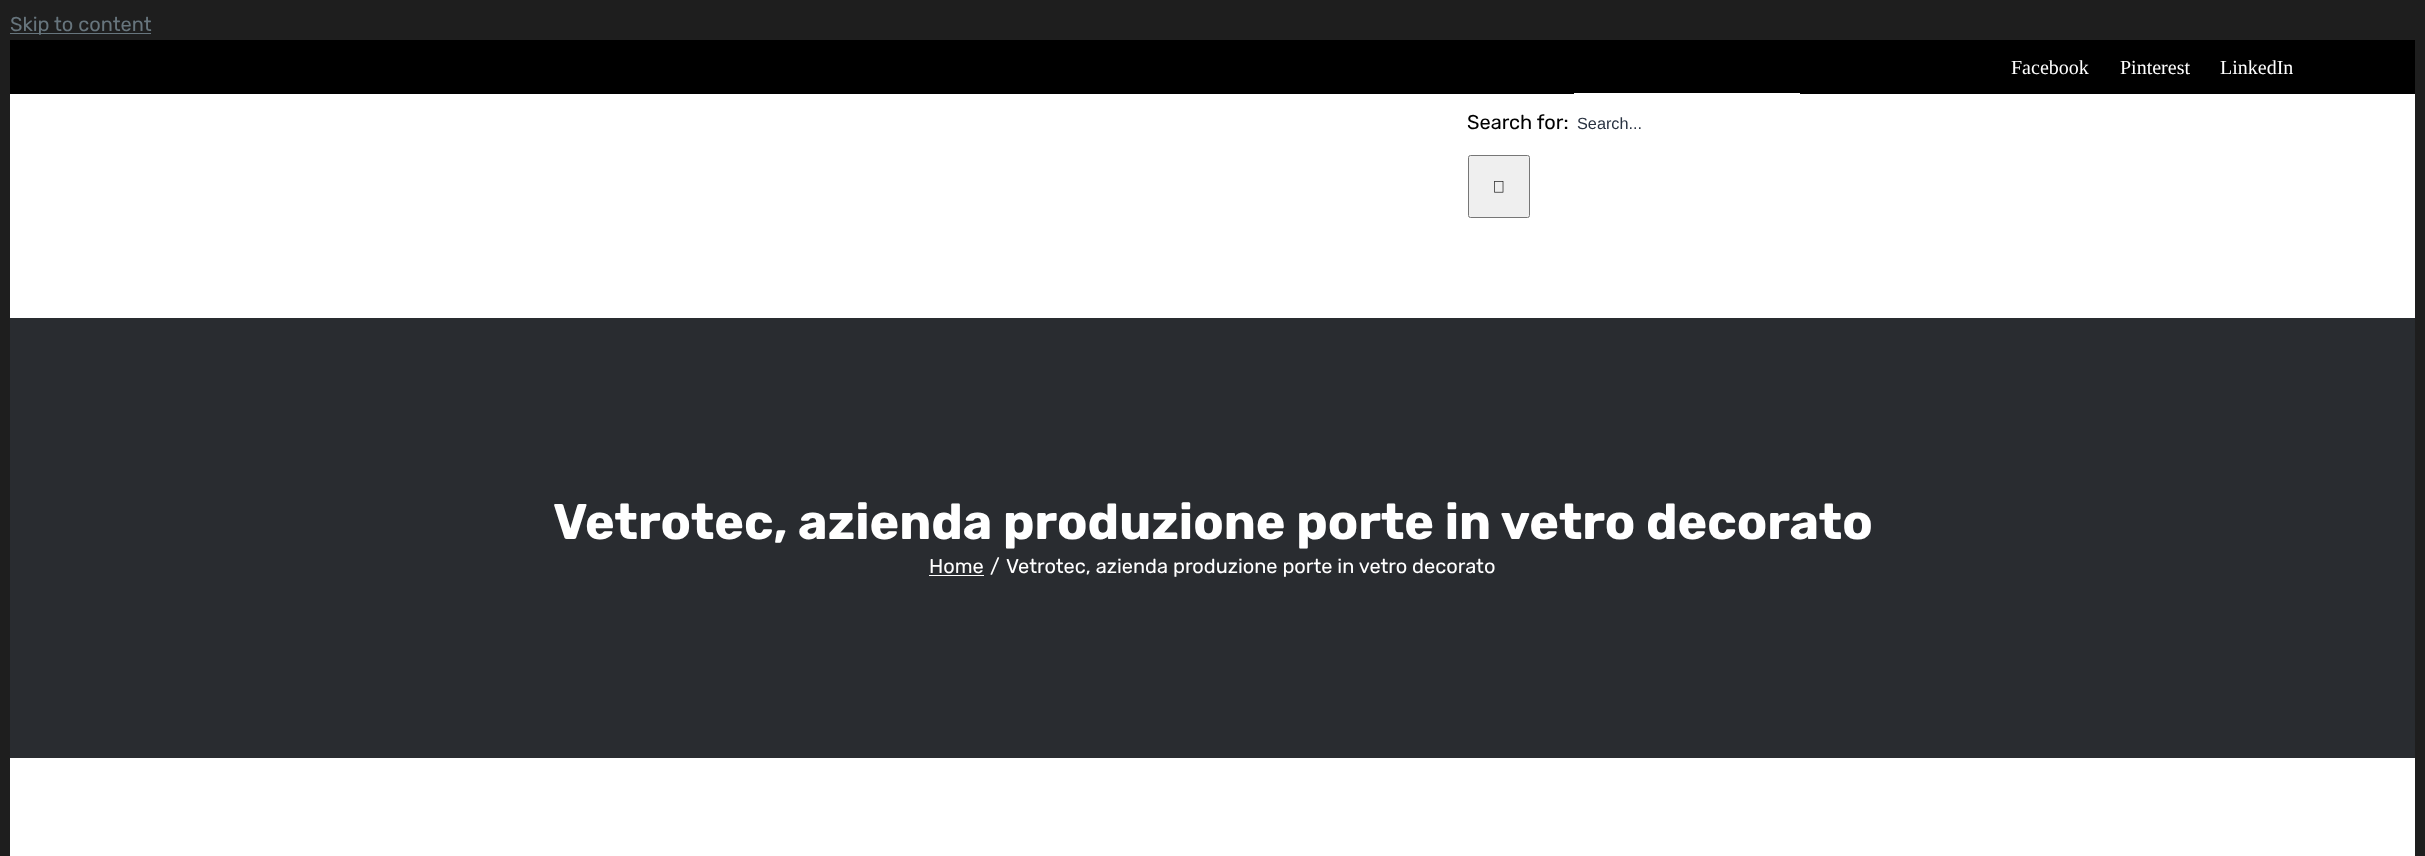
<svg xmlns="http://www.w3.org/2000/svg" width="2425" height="856">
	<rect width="100%" height="100%" fill="#1E1E1E" />
	<rect x="10" y="33" width="141" height="1" fill="#67757D" />
	<text x="10" y="31" font-family="Rubik" font-size="20" fill="#67757D">Skip to content</text>
	<rect x="10" y="94" width="2405" height="762" fill="#FFFFFF" />
	<rect x="10" y="40" width="2405" height="54" fill="#000000" />
	<g font-family="Liberation Serif" font-size="20" fill="#FFFFFF">
		<text x="2011" y="74">Facebook</text>
		<text x="2120" y="74">Pinterest</text>
		<text x="2220" y="74">LinkedIn</text>
	</g>
	<text x="1467" y="129" font-family="Rubik" font-size="20" fill="#000000">Search for:</text>
	<rect x="1574" y="93" width="226" height="1" fill="#FFFFFF" />
	<text x="1577" y="129" font-family="Liberation Sans" font-size="16.25" fill="#293241">Search...</text>
	<rect x="1468.5" y="155.5" width="61" height="62" rx="2" fill="#EFEFEF" stroke="#767676" />
	<image x="1494" y="181" width="10" height="12" href="assets/img1.png" />
	<rect x="10" y="318" width="2405" height="440" fill="#292C30" />
	<text x="553" y="539" font-family="Rubik" font-size="50" font-weight="700" fill="#FFFFFF">Vetrotec, azienda produzione porte in vetro decorato</text>
	<text x="929" y="573" font-family="Rubik" font-size="20" fill="#FFFFFF">Home</text>
	<rect x="929" y="575" width="55" height="1" fill="#FFFFFF" />
	<g font-family="Rubik" font-size="20" fill="#FFFFFF">
		<text x="990" y="573">/</text>
		<text x="1006" y="573">Vetrotec, azienda produzione porte in vetro decorato</text>
	</g>
</svg>
